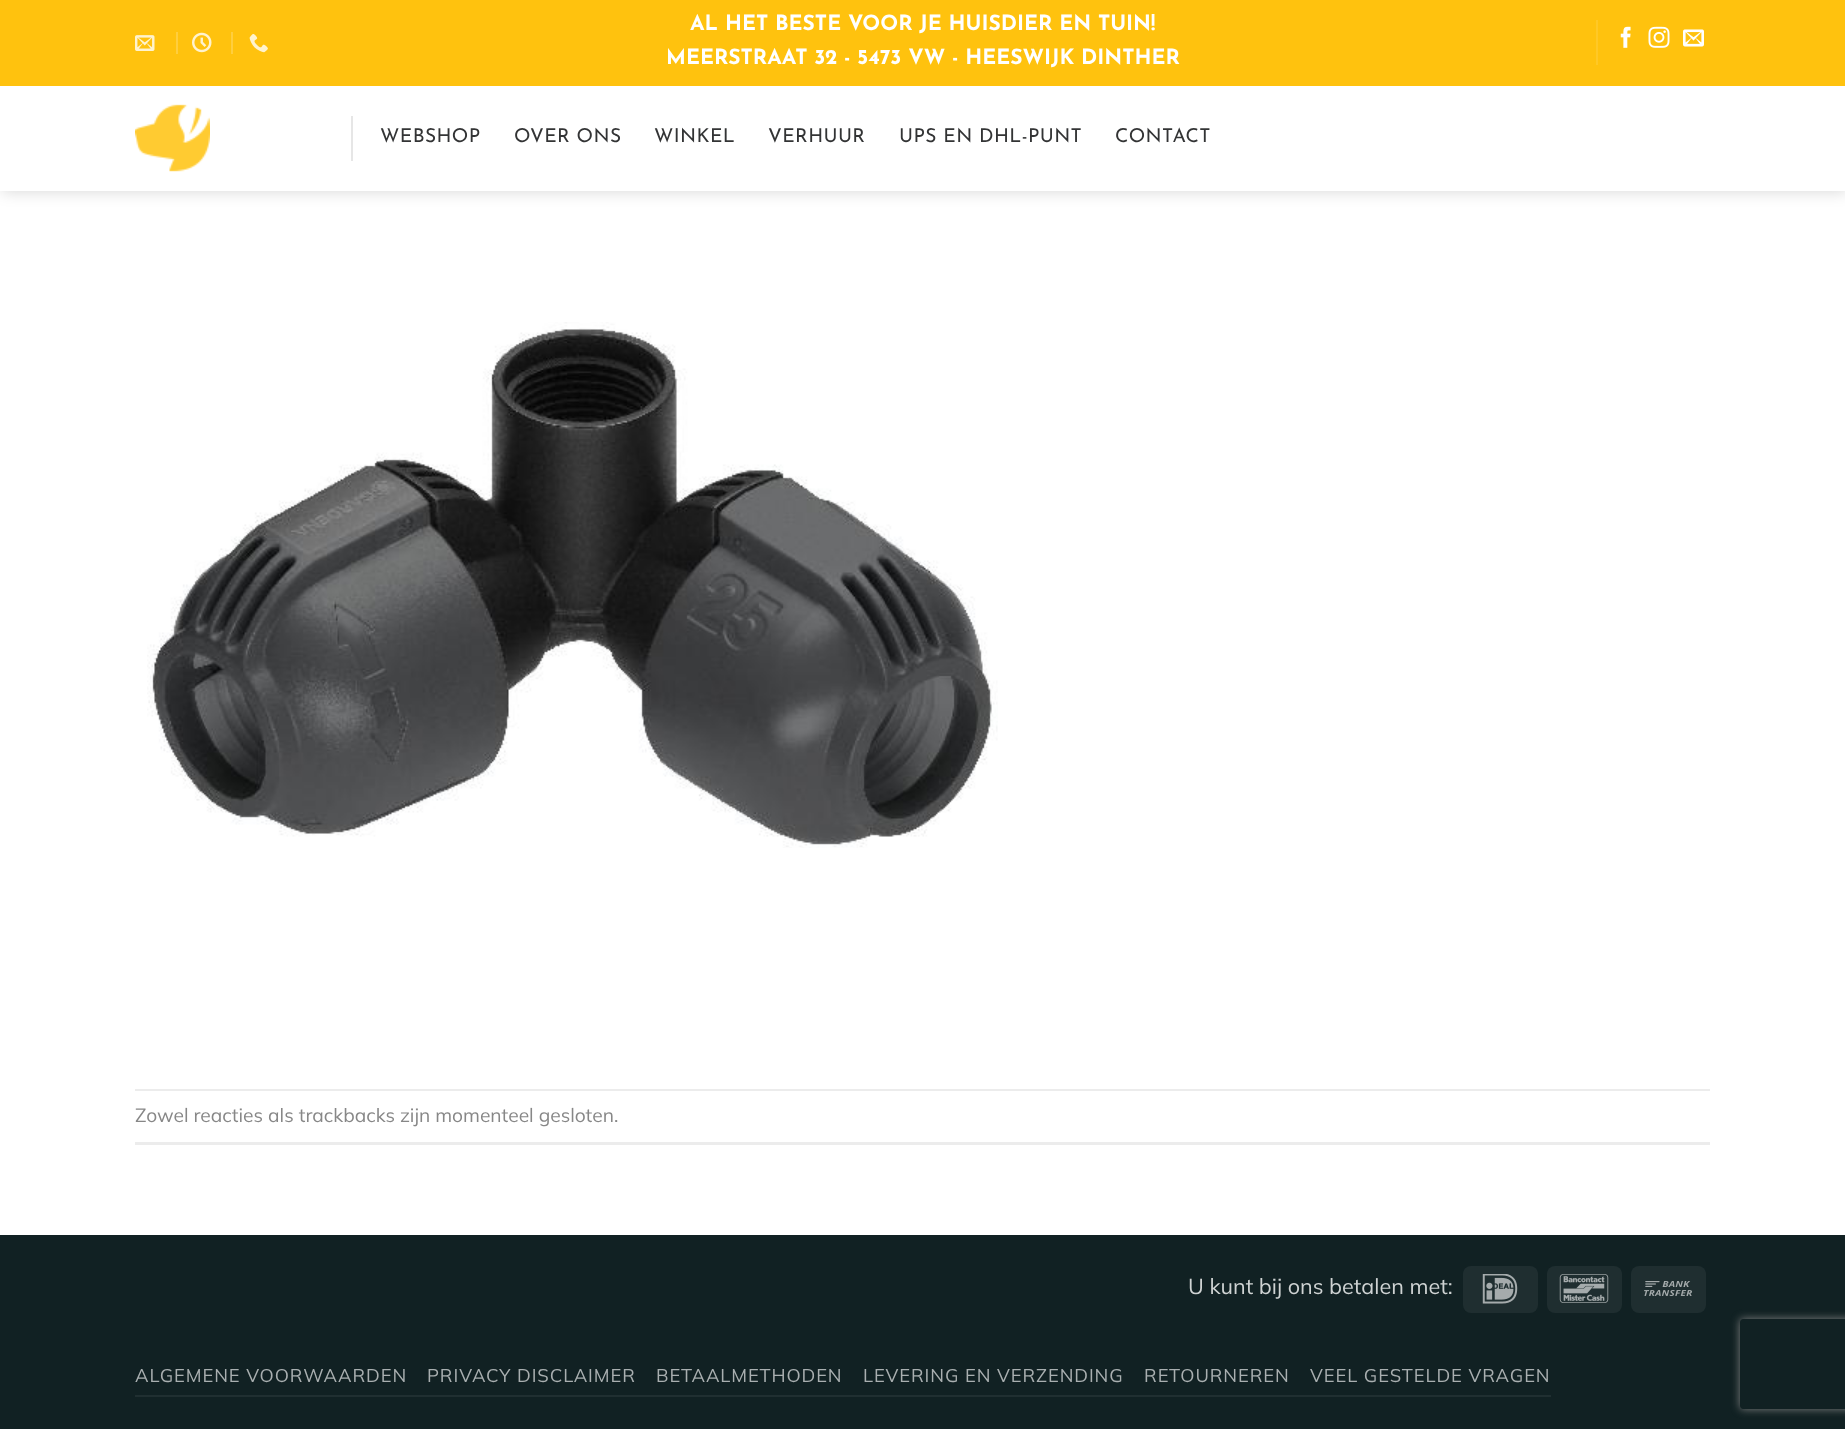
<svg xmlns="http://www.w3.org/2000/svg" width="1845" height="1429">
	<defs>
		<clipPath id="clip1"><path d="M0 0H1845V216H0ZM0 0H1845V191H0Z" clip-rule="evenodd" /></clipPath>
		<clipPath id="clip2"><path d="M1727 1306H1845V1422H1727ZM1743 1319H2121C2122.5 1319 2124 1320.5 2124 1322V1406C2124 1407.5 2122.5 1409 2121 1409H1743C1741.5 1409 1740 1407.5 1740 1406V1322C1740 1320.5 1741.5 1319 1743 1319Z" clip-rule="evenodd" /></clipPath>
	</defs>
	<rect width="100%" height="100%" fill="#FFFFFF" />
	<g clip-path="url(#clip1)">
		<rect x="2" y="2" width="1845" height="190" fill="#000000" fill-opacity="0.15" filter="blur(7.5px)" />
	</g>
	<rect x="0" y="0" width="1845" height="86" fill="#FFC20E" />
	<image x="135" y="35" width="20" height="16" href="assets/img1.png" />
	<rect x="176" y="32" width="2" height="22" fill="#FFCE3E" />
	<image x="192" y="32" width="20" height="21" href="assets/img2.png" />
	<rect x="231" y="32" width="2" height="22" fill="#FFCE3E" />
	<image x="249" y="34" width="19" height="19" href="assets/img3.png" />
	<g font-family="Josefin Sans" font-size="21" font-weight="700" fill="#FFFFFF">
		<text x="690" y="30">AL HET BESTE VOOR JE HUISDIER EN TUIN!</text>
		<text x="666" y="64">MEERSTRAAT 32 - 5473 VW - HEESWIJK DINTHER</text>
	</g>
	<rect x="1596" y="20" width="2" height="45" fill="#FFC826" />
	<image x="1620" y="26" width="11" height="22" href="assets/img4.png" />
	<image x="1648" y="26" width="22" height="22" href="assets/img5.png" />
	<image x="1683" y="29" width="21" height="18" href="assets/img6.png" />
	<image x="135" y="104" width="75" height="68" href="assets/img7.png" />
	<rect x="351" y="116" width="2" height="45" fill="#E6E6E6" />
	<g font-family="Josefin Sans" font-size="19.2" letter-spacing="0.4" fill="#333435">
		<text x="380" y="142">WEBSHOP</text>
		<text x="514" y="142">OVER ONS</text>
		<text x="654" y="142">WINKEL</text>
		<text x="768" y="142">VERHUUR</text>
		<text x="899" y="142">UPS EN DHL-PUNT</text>
		<text x="1115" y="142">CONTACT</text>
	</g>
	<rect x="0" y="190" width="1845" height="1" fill="#FFFFFF" fill-opacity="0.9" />
	<image x="147" y="322" width="851" height="526" href="assets/img8.png" />
	<rect x="135" y="1089" width="1575" height="2" fill="#ECECEC" />
	<rect x="135" y="1142" width="1575" height="3" fill="#ECECEC" />
	<text x="135" y="1122" font-family="Mulish" font-size="19.2" font-weight="200" fill="#878787">Zowel reacties als trackbacks zijn momenteel gesloten.</text>
	<rect x="0" y="1235" width="1845" height="194" fill="#112123" />
	<text x="1188" y="1294" font-family="Mulish" font-size="21.6" font-weight="200" fill="#CFD3D3">U kunt bij ons betalen met:</text>
	<rect x="1463" y="1266" width="75" height="47" rx="8" fill="#1F2E30" />
	<image x="1482" y="1274" width="36" height="30" href="assets/img9.png" />
	<rect x="1547" y="1266" width="75" height="47" rx="8" fill="#1F2E30" />
	<image x="1559" y="1274" width="50" height="29" href="assets/img10.png" />
	<rect x="1631" y="1266" width="75" height="47" rx="8" fill="#1F2E30" />
	<image x="1644" y="1281" width="48" height="15" href="assets/img11.png" />
	<rect x="135" y="1395" width="1416" height="2" fill="#202F31" />
	<g font-family="Mulish" font-size="18.4" font-weight="200" letter-spacing="0.9" fill="#A9AFB0">
		<text x="135" y="1382">ALGEMENE VOORWAARDEN</text>
		<text x="427" y="1382">PRIVACY DISCLAIMER</text>
		<text x="656" y="1382">BETAALMETHODEN</text>
		<text x="863" y="1382">LEVERING EN VERZENDING</text>
		<text x="1144" y="1382">RETOURNEREN</text>
		<text x="1310" y="1382">VEEL GESTELDE VRAGEN</text>
	</g>
	<g clip-path="url(#clip2)">
		<rect x="1740" y="1319" width="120" height="90" rx="3" fill="#808080" filter="blur(4px)" />
	</g>
</svg>
